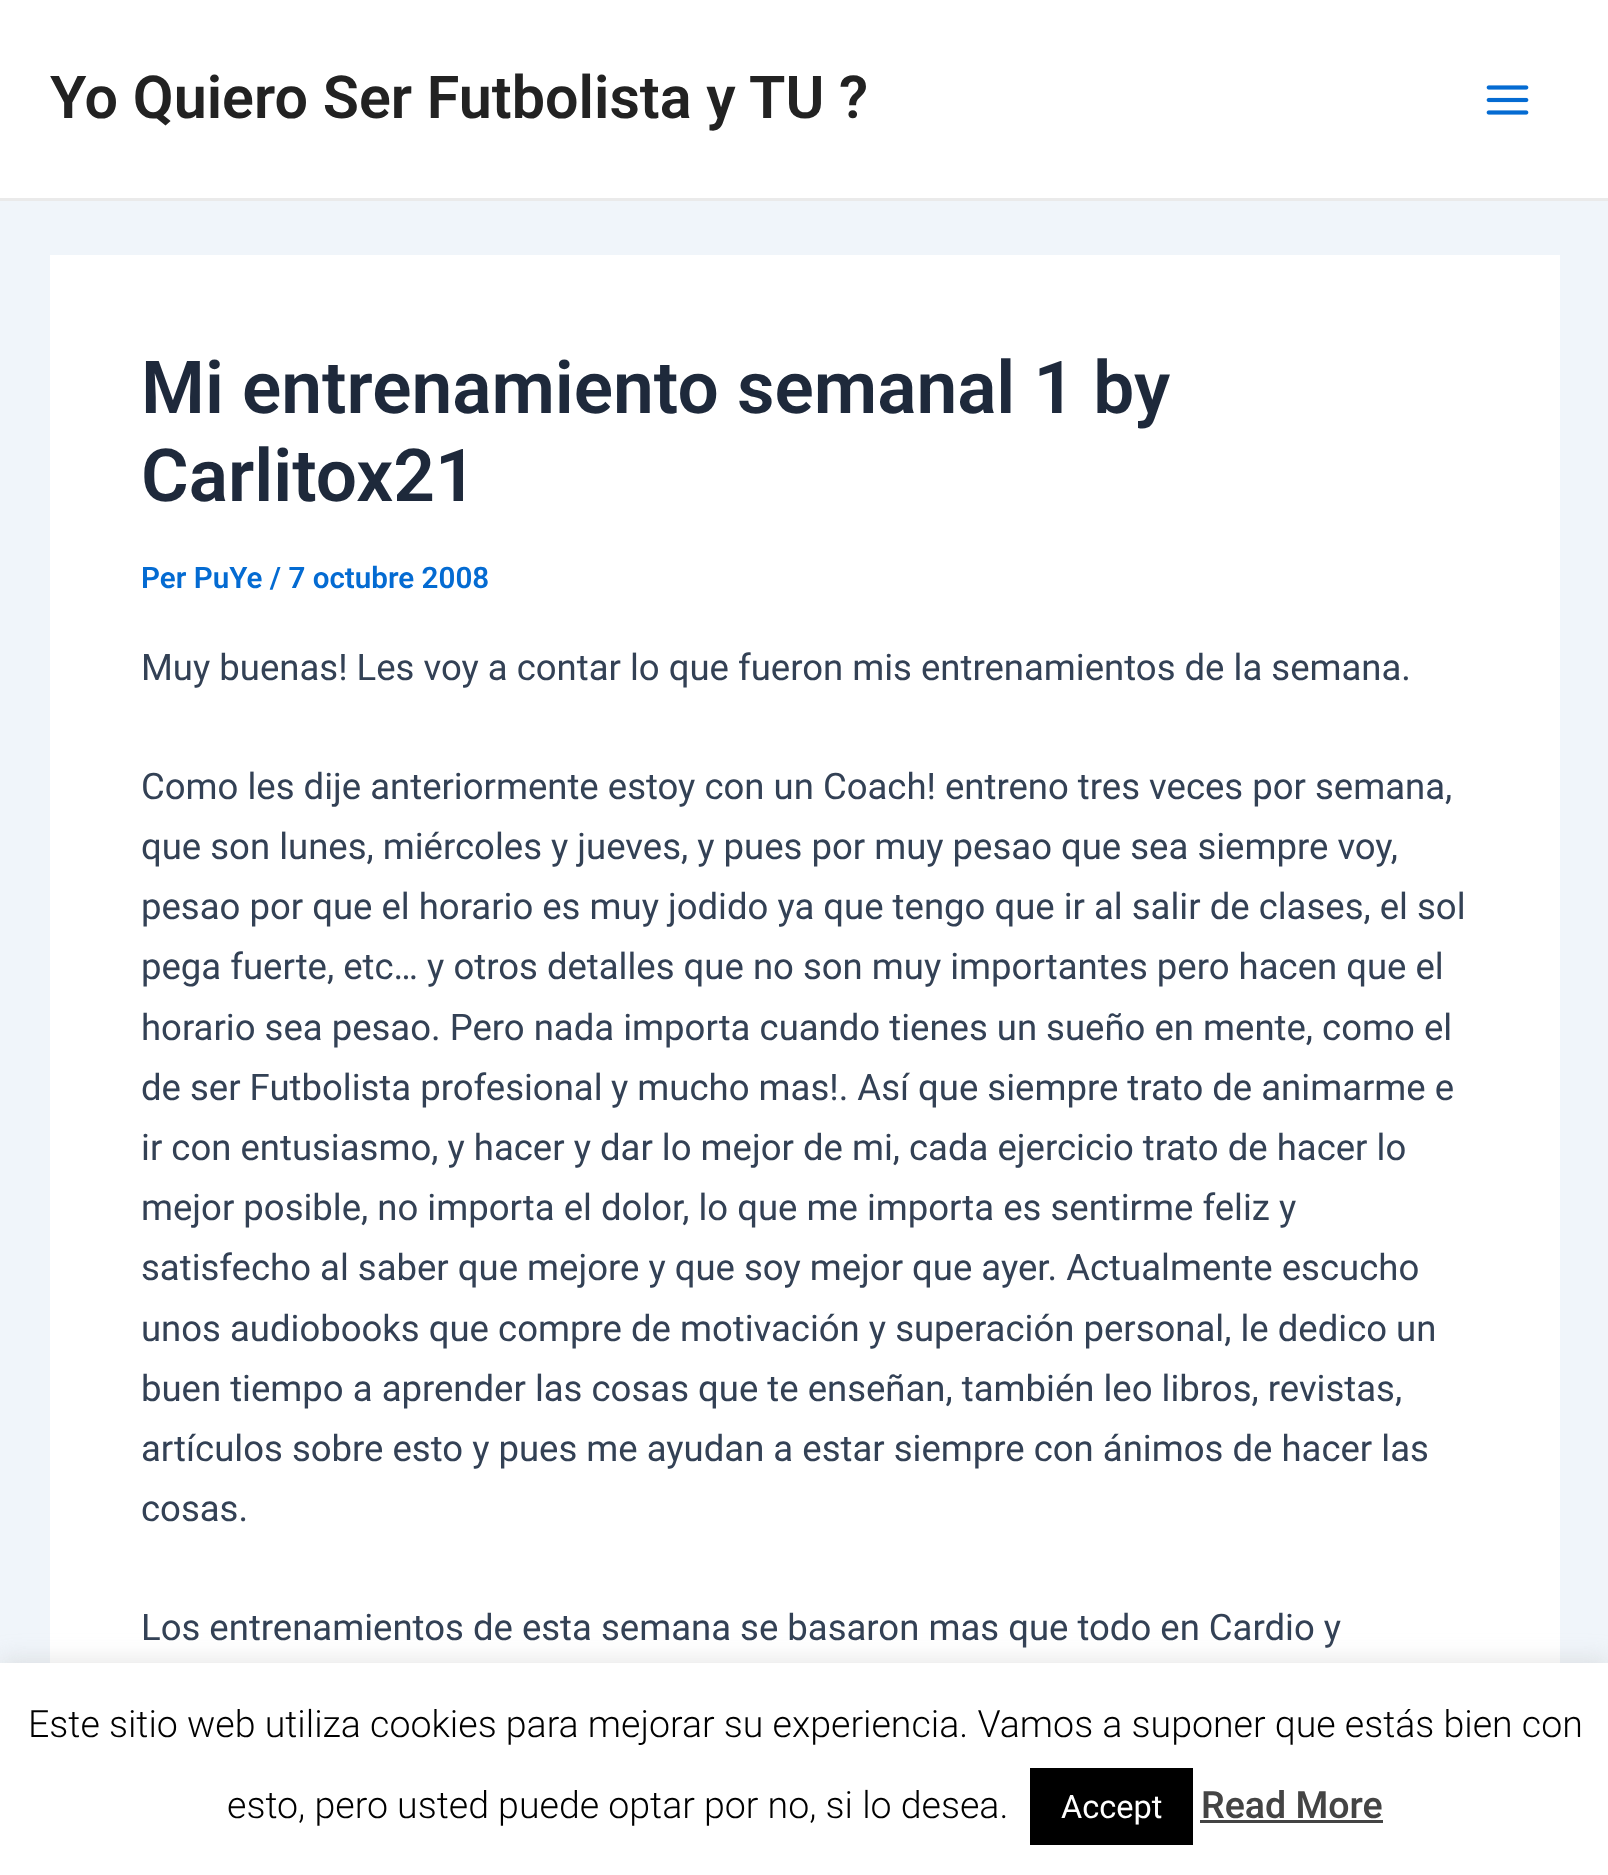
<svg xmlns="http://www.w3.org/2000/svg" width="1608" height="1875">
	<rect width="100%" height="100%" fill="#F0F5FA" />
	<rect x="0" y="0" width="1608" height="198" fill="#FFFFFF" />
	<rect x="0" y="198" width="1608" height="3" fill="#EAEAEA" />
	<text x="50" y="118" font-family="Roboto" font-size="59.25" font-weight="600" fill="#222222">Yo Quiero Ser Futbolista y TU ?</text>
	<image x="1486" y="85" width="43" height="30" href="assets/img1.png" />
	<rect x="50" y="255" width="1510" height="1408" fill="#FFFFFF" />
	<g font-family="Roboto" font-size="73" font-weight="600" fill="#1E293B">
		<text x="141" y="413">Mi entrenamiento semanal 1 by</text>
		<text x="141" y="501">Carlitox21</text>
	</g>
	<text x="141" y="588" font-family="Roboto" font-size="29.6" font-weight="600" fill="#046BD2">Per PuYe / 7 octubre 2008</text>
	<g font-family="Roboto" font-size="36.5" fill="#334155">
		<text x="141" y="680">Muy buenas! Les voy a contar lo que fueron mis entrenamientos de la semana.</text>
		<text x="141" y="799">Como les dije anteriormente estoy con un Coach! entreno tres veces por semana,</text>
		<text x="141" y="859">que son lunes, miércoles y jueves, y pues por muy pesao que sea siempre voy,</text>
		<text x="141" y="919">pesao por que el horario es muy jodido ya que tengo que ir al salir de clases, el sol</text>
		<text x="141" y="979">pega fuerte, etc… y otros detalles que no son muy importantes pero hacen que el</text>
		<text x="141" y="1040">horario sea pesao. Pero nada importa cuando tienes un sueño en mente, como el</text>
		<text x="141" y="1100">de ser Futbolista profesional</text>
		<text x="611" y="1100">y mucho mas!. Así que siempre trato de animarme e</text>
		<text x="141" y="1160">ir con entusiasmo, y hacer y dar lo mejor de mi, cada ejercicio trato de hacer lo</text>
		<text x="141" y="1220">mejor posible, no importa el dolor, lo que me importa es sentirme feliz y</text>
		<text x="141" y="1280">satisfecho al saber que mejore y que soy mejor que ayer. Actualmente escucho</text>
		<text x="141" y="1341">unos audiobooks que compre de motivación y superación personal, le dedico un</text>
		<text x="141" y="1401">buen tiempo a aprender las cosas que te enseñan, también leo libros, revistas,</text>
		<text x="141" y="1461">artículos sobre esto y pues me ayudan a estar siempre con ánimos de hacer las</text>
		<text x="141" y="1521">cosas.</text>
		<text x="141" y="1640">Los entrenamientos de esta semana se basaron mas que todo en Cardio y</text>
	</g>
	<rect x="0" y="1660" width="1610" height="213" fill="#ACABAB" fill-opacity="0.3" filter="blur(12.5px)" />
	<rect x="0" y="1663" width="1608" height="212" fill="#FFFFFF" />
	<g font-family="Roboto" font-size="37.5" font-weight="300" fill="#000000">
		<text x="28" y="1737">Este sitio web utiliza cookies para mejorar su experiencia. Vamos a suponer que estás bien con</text>
		<text x="227" y="1818">esto, pero usted puede optar por no, si lo desea.</text>
	</g>
	<rect x="1030" y="1768" width="163" height="77" fill="#000000" />
	<text x="1061" y="1818" font-family="Roboto" font-size="32.5" fill="#FFFFFF">Accept</text>
	<text x="1201" y="1818" font-family="Roboto" font-size="37.5" font-weight="500" fill="#444444">Read More</text>
	<rect x="1200" y="1820" width="183" height="3" fill="#444444" />
</svg>
